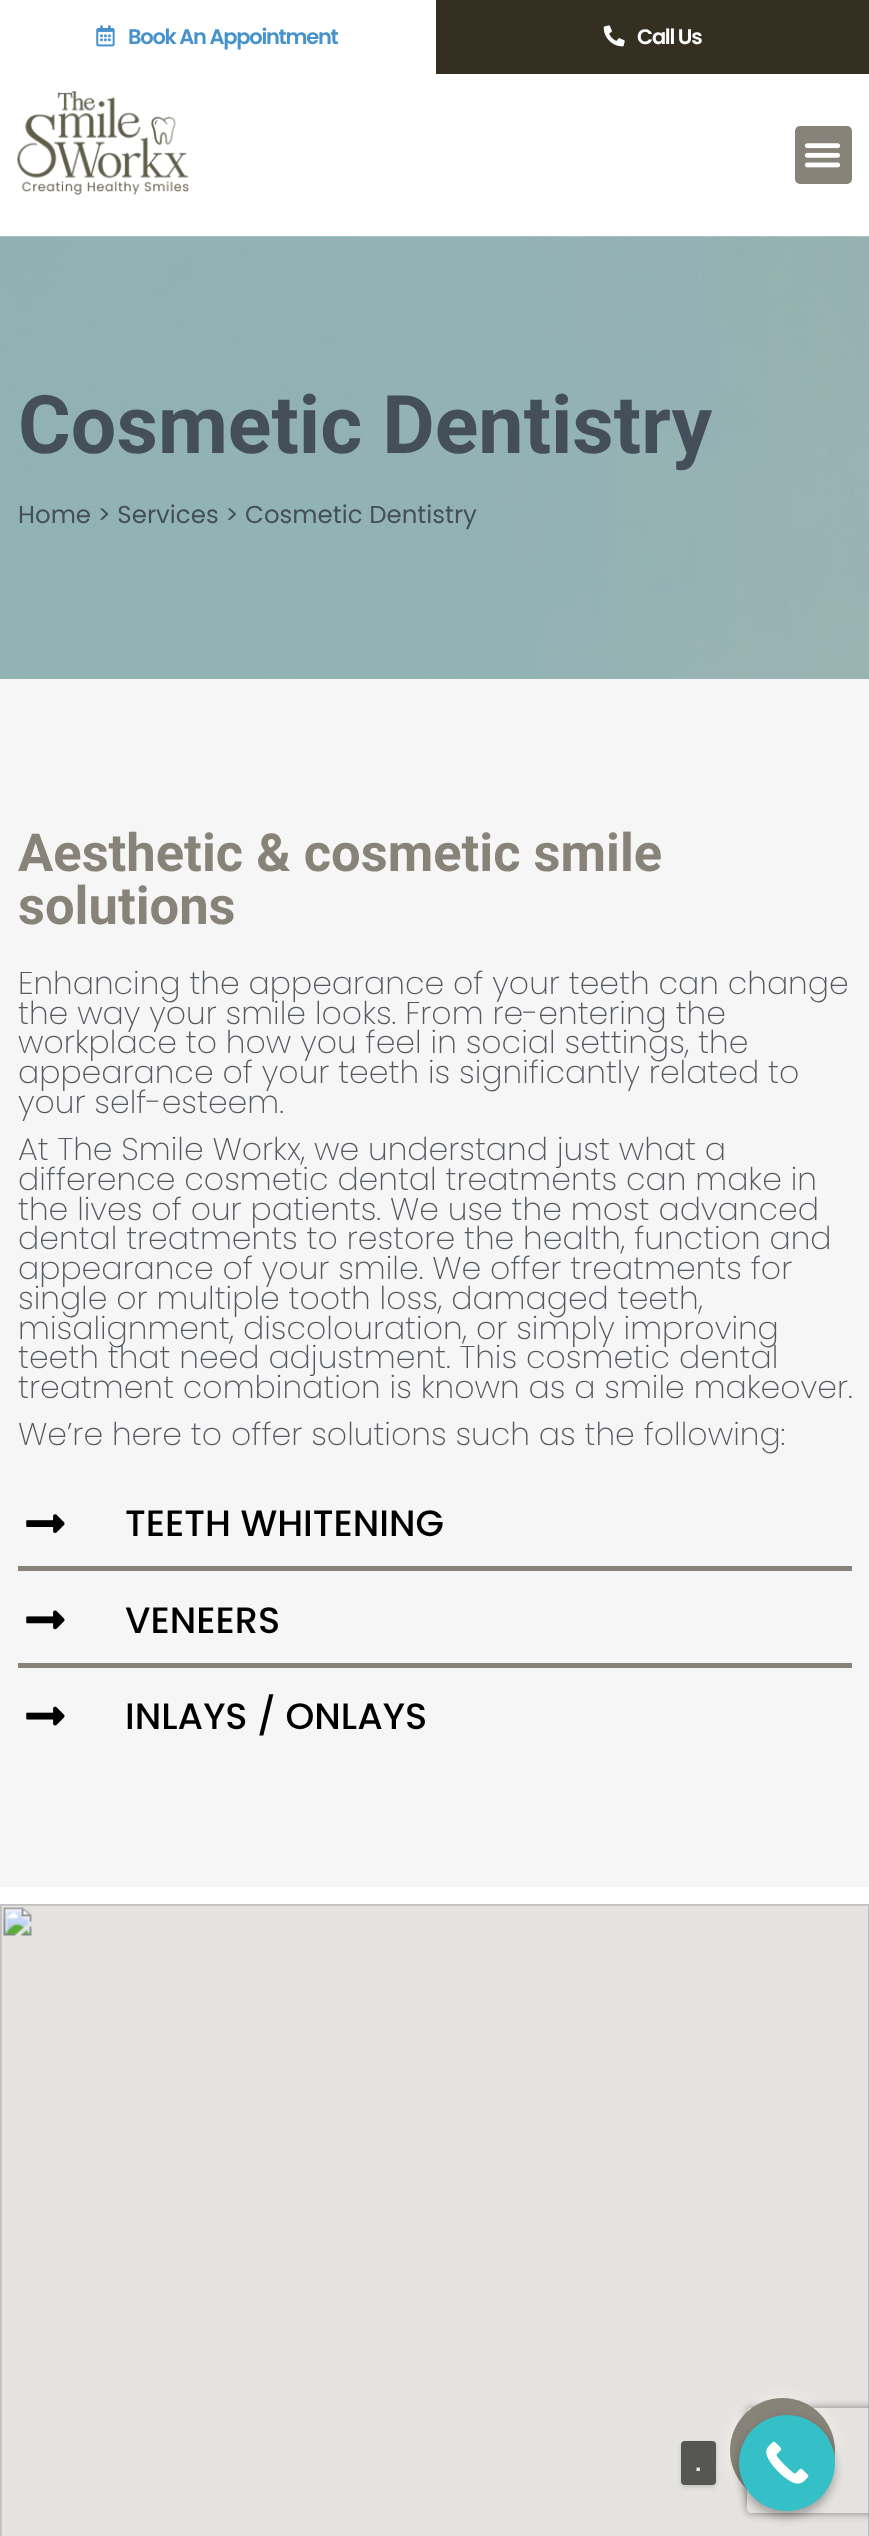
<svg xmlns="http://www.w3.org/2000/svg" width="869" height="2536">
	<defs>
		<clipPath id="clip1"><path d="M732 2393H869V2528H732ZM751 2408H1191C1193 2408 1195 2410 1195 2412V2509C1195 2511 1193 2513 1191 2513H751C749 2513 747 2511 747 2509V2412C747 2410 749 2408 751 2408Z" clip-rule="evenodd" /></clipPath>
		<clipPath id="clip2"><path d="M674 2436H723V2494H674ZM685 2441H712C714 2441 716 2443 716 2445V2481C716 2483 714 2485 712 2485H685C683 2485 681 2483 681 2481V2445C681 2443 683 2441 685 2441Z" clip-rule="evenodd" /></clipPath>
	</defs>
	<rect width="100%" height="100%" fill="#FFFFFF" />
	<image x="96" y="25" width="19" height="22" href="assets/img1.png" />
	<text x="128" y="44" font-family="Poppins" font-size="21" font-weight="600" letter-spacing="-1.25" fill="#4692CC">Book An Appointment</text>
	<rect x="436" y="0" width="433" height="74" fill="#342F20" />
	<image x="603" y="25" width="22" height="22" href="assets/img2.png" />
	<text x="637" y="44" font-family="Poppins" font-size="21" font-weight="600" letter-spacing="-1.25" fill="#FFFFFF">Call Us</text>
	<image x="17" y="91" width="172" height="105" href="assets/img3.png" />
	<rect x="795" y="126" width="57" height="58" rx="5" fill="#878378" />
	<image x="804" y="143" width="37" height="25" href="assets/img4.png" />
	<image x="0" y="236" width="869" height="443" href="assets/img5.png" />
	<text x="18" y="453" font-family="Roboto" font-size="80.75" font-weight="700" fill="#444F59">Cosmetic Dentistry</text>
	<text x="18" y="523" font-family="Poppins" font-size="24.5" fill="#444F59">Home &gt; Services &gt; Cosmetic Dentistry</text>
	<rect x="0" y="679" width="869" height="1208" fill="#F6F6F6" />
	<g font-family="Roboto" font-size="52.5" font-weight="700" fill="#878378">
		<text x="18" y="871">Aesthetic &amp; cosmetic smile</text>
		<text x="18" y="924">solutions</text>
	</g>
	<g font-family="Poppins" font-size="31.5" font-weight="200" fill="#54595F">
		<text x="18" y="994">Enhancing the appearance of your teeth can change</text>
		<text x="18" y="1024">the way your smile looks. From re-entering the</text>
		<text x="18" y="1053">workplace to how you feel in social settings, the</text>
		<text x="18" y="1083">appearance of your teeth is significantly related to</text>
		<text x="18" y="1113">your self-esteem.</text>
		<text x="18" y="1160">At The Smile Workx, we understand just what a</text>
		<text x="18" y="1190">difference cosmetic dental treatments can make in</text>
		<text x="18" y="1220">the lives of our patients. We use the most advanced</text>
		<text x="18" y="1249">dental treatments to restore the health, function and</text>
		<text x="18" y="1279">appearance of your smile. We offer treatments for</text>
		<text x="18" y="1309">single or multiple tooth loss, damaged teeth,</text>
		<text x="18" y="1339">misalignment, discolouration, or simply improving</text>
		<text x="18" y="1368">teeth that need adjustment. This cosmetic dental</text>
		<text x="18" y="1398">treatment combination is known as a smile makeover.</text>
		<text x="18" y="1445">We’re here to offer solutions such as the following:</text>
	</g>
	<image x="26" y="1514" width="39" height="19" href="assets/img6.png" />
	<text x="125" y="1536" font-family="Poppins" font-size="36.75" font-weight="500" fill="#000000">TEETH WHITENING</text>
	<rect x="18" y="1566" width="834" height="5" fill="#878378" />
	<image x="26" y="1610" width="39" height="20" href="assets/img7.png" />
	<text x="125" y="1633" font-family="Poppins" font-size="36.75" font-weight="500" fill="#000000">VENEERS</text>
	<rect x="18" y="1663" width="834" height="5" fill="#878378" />
	<image x="26" y="1706" width="39" height="20" href="assets/img8.png" />
	<text x="125" y="1729" font-family="Poppins" font-size="36.75" font-weight="500" fill="#000000">INLAYS / ONLAYS</text>
	<image x="0" y="1904" width="869" height="632" href="assets/img9.png" />
	<rect x="730" y="2398" width="105" height="105" rx="52.5" fill="#FFFFFF" fill-opacity="0.5" filter="blur(9px)" />
	<g clip-path="url(#clip1)">
		<rect x="747" y="2408" width="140" height="105" rx="4" fill="#808080" filter="blur(4.5px)" />
	</g>
	<circle cx="782.5" cy="2450.5" r="52.5" fill="#878378" />
	<rect x="739" y="2420" width="96" height="97" rx="48" fill="#000000" fill-opacity="0.3" filter="blur(5px)" />
	<circle cx="787" cy="2463" r="48" fill="#35C0C8" />
	<image x="766" y="2441" width="43" height="43" href="assets/img10.png" />
	<g clip-path="url(#clip2)">
		<rect x="681" y="2443" width="35" height="44" rx="4" fill="#000000" fill-opacity="0.15" filter="blur(2px)" />
	</g>
	<rect x="681" y="2441" width="35" height="44" rx="4" fill="#464646" fill-opacity="0.9" />
	<text x="695" y="2471" font-family="Liberation Sans" font-size="23" font-weight="700" fill="#ECECEC">.</text>
</svg>
